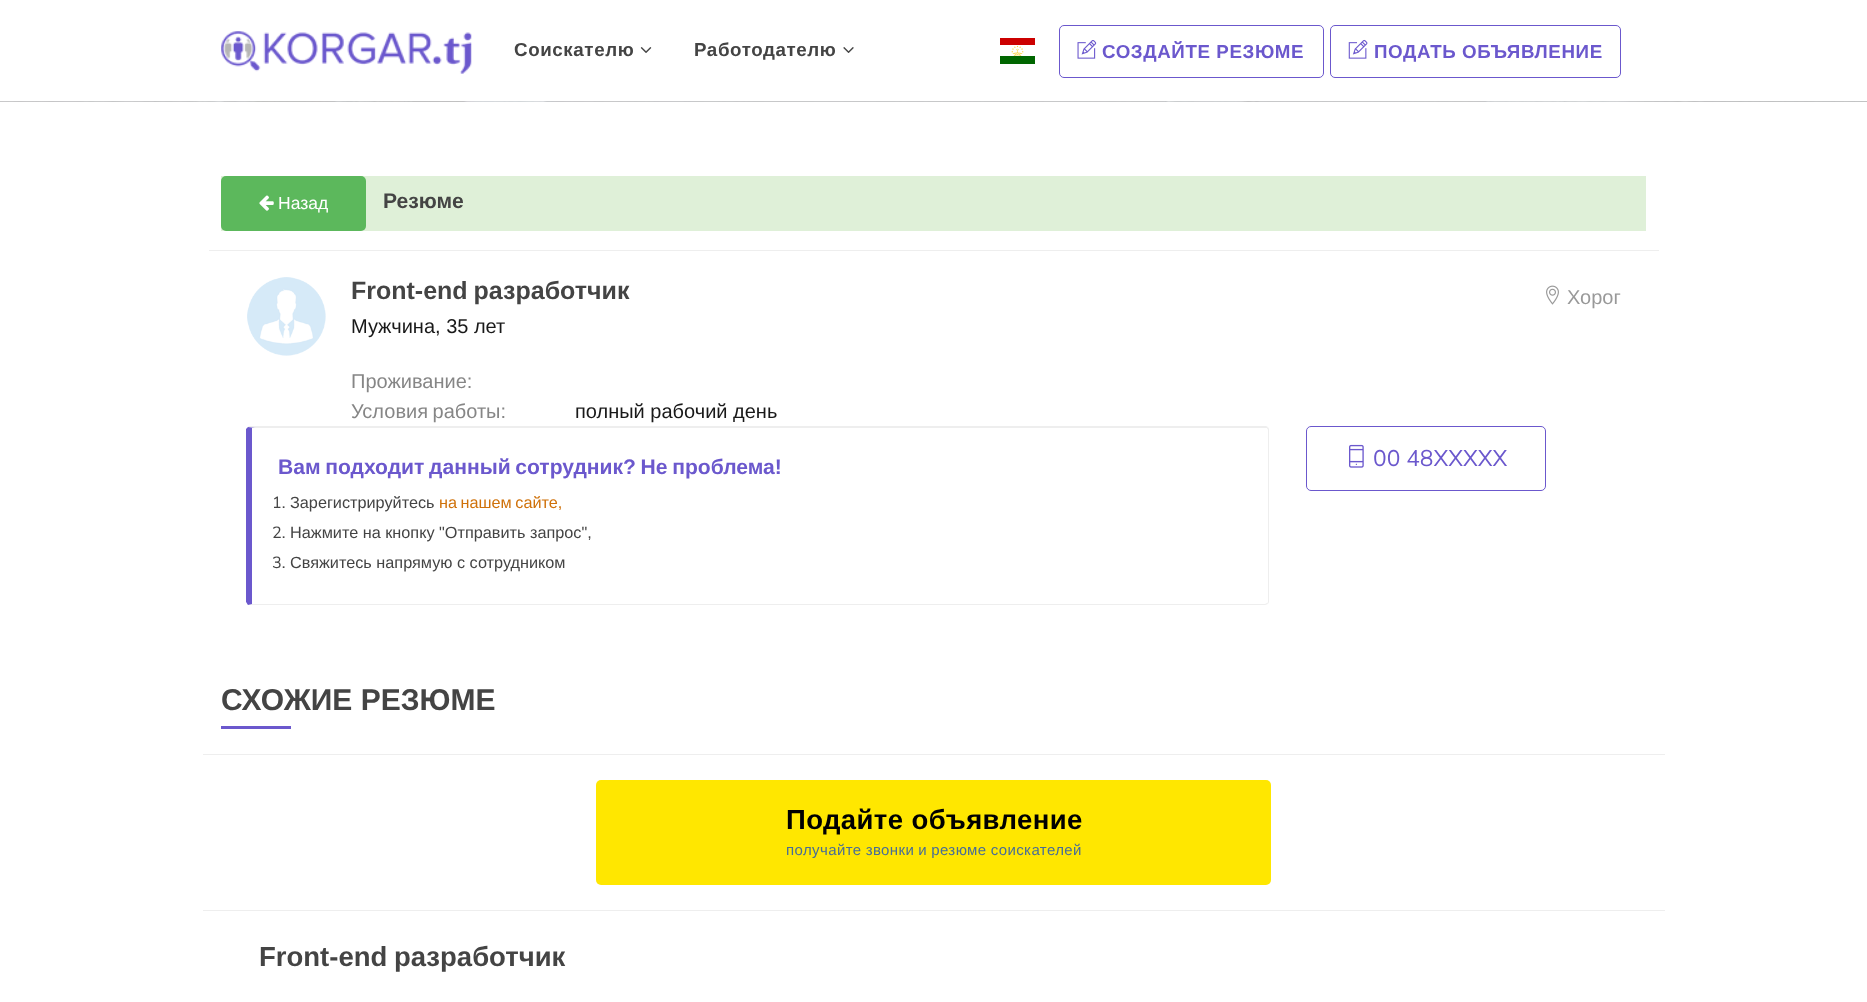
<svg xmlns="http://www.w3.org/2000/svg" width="1867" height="1002">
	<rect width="100%" height="100%" fill="#FFFFFF" />
	<image x="0" y="101" width="1867" height="1" href="assets/img1.png" />
	<image x="221" y="31" width="251" height="43" href="assets/img2.png" />
	<text x="514" y="56" font-family="Liberation Sans" font-size="18.75" font-weight="700" letter-spacing="0.6" fill="#444444">Соискателю</text>
	<image x="640" y="47" width="12" height="6" href="assets/img3.png" />
	<text x="694" y="56" font-family="Liberation Sans" font-size="18.75" font-weight="700" letter-spacing="0.6" fill="#444444">Работодателю</text>
	<image x="843" y="47" width="11" height="6" href="assets/img4.png" />
	<image x="1000" y="38" width="35" height="26" href="assets/img5.png" />
	<rect x="1059.5" y="25.5" width="264" height="52" rx="4.5" fill="none" stroke="#6B58CD" />
	<image x="1077" y="40" width="20" height="19" href="assets/img6.png" />
	<text x="1102" y="58" font-family="Liberation Sans" font-size="18.75" font-weight="700" letter-spacing="0.6" fill="#6B58CD">СОЗДАЙТЕ РЕЗЮМЕ</text>
	<rect x="1330.5" y="25.5" width="290" height="52" rx="4.5" fill="none" stroke="#6B58CD" />
	<image x="1348" y="39" width="20" height="20" href="assets/img7.png" />
	<text x="1374" y="58" font-family="Liberation Sans" font-size="18.75" font-weight="700" letter-spacing="0.6" fill="#6B58CD">ПОДАТЬ ОБЪЯВЛЕНИЕ</text>
	<rect x="221" y="176" width="1425" height="55" fill="#DFF0D8" />
	<rect x="221" y="176" width="145" height="55" rx="5" fill="#5CB85C" />
	<image x="259" y="195" width="15" height="16" href="assets/img8.png" />
	<text x="278" y="209" font-family="Liberation Sans" font-size="17.5" fill="#FFFFFF">Назад</text>
	<text x="383" y="208" font-family="Liberation Sans" font-size="21.1" font-weight="700" fill="#444444">Резюме</text>
	<rect x="209" y="250" width="1450" height="1" fill="#EEEEEE" />
	<image x="247" y="277" width="79" height="79" href="assets/img9.png" />
	<text x="351" y="299" word-spacing="-1" font-family="Liberation Sans" font-size="25" font-weight="700" fill="#444444">Front-end разработчик</text>
	<text x="351" y="333" font-family="Liberation Sans" font-size="20" fill="#191919">Мужчина, 35 лет</text>
	<g font-family="Liberation Sans" font-size="20" fill="#868686">
		<text x="351" y="388">Проживание:</text>
		<text x="351" y="418" word-spacing="-1">Условия работы:</text>
	</g>
	<text x="575" y="418" font-family="Liberation Sans" font-size="20" fill="#191919">полный рабочий день</text>
	<image x="1546" y="285" width="13" height="20" href="assets/img10.png" />
	<text x="1567" y="304" font-family="Liberation Sans" font-size="20" fill="#999999">Хорог</text>
	<path d="M248 427L249 426H1266L1268 427L1267 428H1265H255Z" fill="#EEEEEE" />
	<path d="M1269 602L1268 604L1267 603C1268 603 1268 602 1268 601V430C1268 429 1267 429 1267 428L1268 427L1269 429Z" fill="#EEEEEE" />
	<path d="M250 605H1265L1268 604L1267 603L1265 604H252L248 605Z" fill="#EEEEEE" />
	<path d="M252 428V604L248 605C247 604 247 603 246 602V429L248 427L255 428Z" fill="#6B58CD" />
	<text x="278" y="474" word-spacing="-1.25" font-family="Liberation Sans" font-size="21.1" font-weight="700" fill="#6B58CD">Вам подходит данный сотрудник? Не проблема!</text>
	<text x="272" y="508" font-family="Nunito Sans" font-size="16.25" fill="#444444">1.</text>
	<text x="290" y="508" font-family="Liberation Sans" font-size="16.25" fill="#444444">Зарегистрируйтесь</text>
	<text x="439" y="508" word-spacing="-1" font-family="Liberation Sans" font-size="16.25" fill="#CF710A">на нашем сайте,</text>
	<text x="272" y="538" font-family="Nunito Sans" font-size="16.25" fill="#444444">2.</text>
	<text x="290" y="538" font-family="Liberation Sans" font-size="16.25" fill="#444444">Нажмите на кнопку "Отправить запрос",</text>
	<text x="272" y="568" font-family="Nunito Sans" font-size="16.25" fill="#444444">3.</text>
	<text x="290" y="568" font-family="Liberation Sans" font-size="16.25" fill="#444444">Свяжитесь напрямую с сотрудником</text>
	<rect x="1306.5" y="426.5" width="239" height="64" rx="4.5" fill="none" stroke="#6B58CD" />
	<image x="1349" y="444" width="15" height="24" href="assets/img11.png" />
	<text x="1373" y="466" font-family="Nunito Sans" font-size="22.75" fill="#6B58CD">00 48XXXXX</text>
	<text x="221" y="710" font-family="Liberation Sans" font-size="30" font-weight="700" fill="#444444">СХОЖИЕ РЕЗЮМЕ</text>
	<rect x="221" y="726" width="70" height="3" fill="#6B58CD" />
	<rect x="203" y="754" width="1462" height="1" fill="#EEEEEE" />
	<rect x="596" y="780" width="675" height="105" rx="5" fill="#FFE700" />
	<text x="786" y="829" font-family="Liberation Sans" font-size="27.5" font-weight="700" letter-spacing="0.4" fill="#000000">Подайте объявление</text>
	<text x="786" y="855" word-spacing="-0.5" font-family="Liberation Sans" font-size="15" letter-spacing="0.4" fill="#486D97">получайте звонки и резюме соискателей</text>
	<rect x="203" y="910" width="1462" height="1" fill="#EEEEEE" />
	<text x="259" y="966" word-spacing="-1" font-family="Liberation Sans" font-size="27.5" font-weight="700" fill="#444444">Front-end разработчик</text>
</svg>
